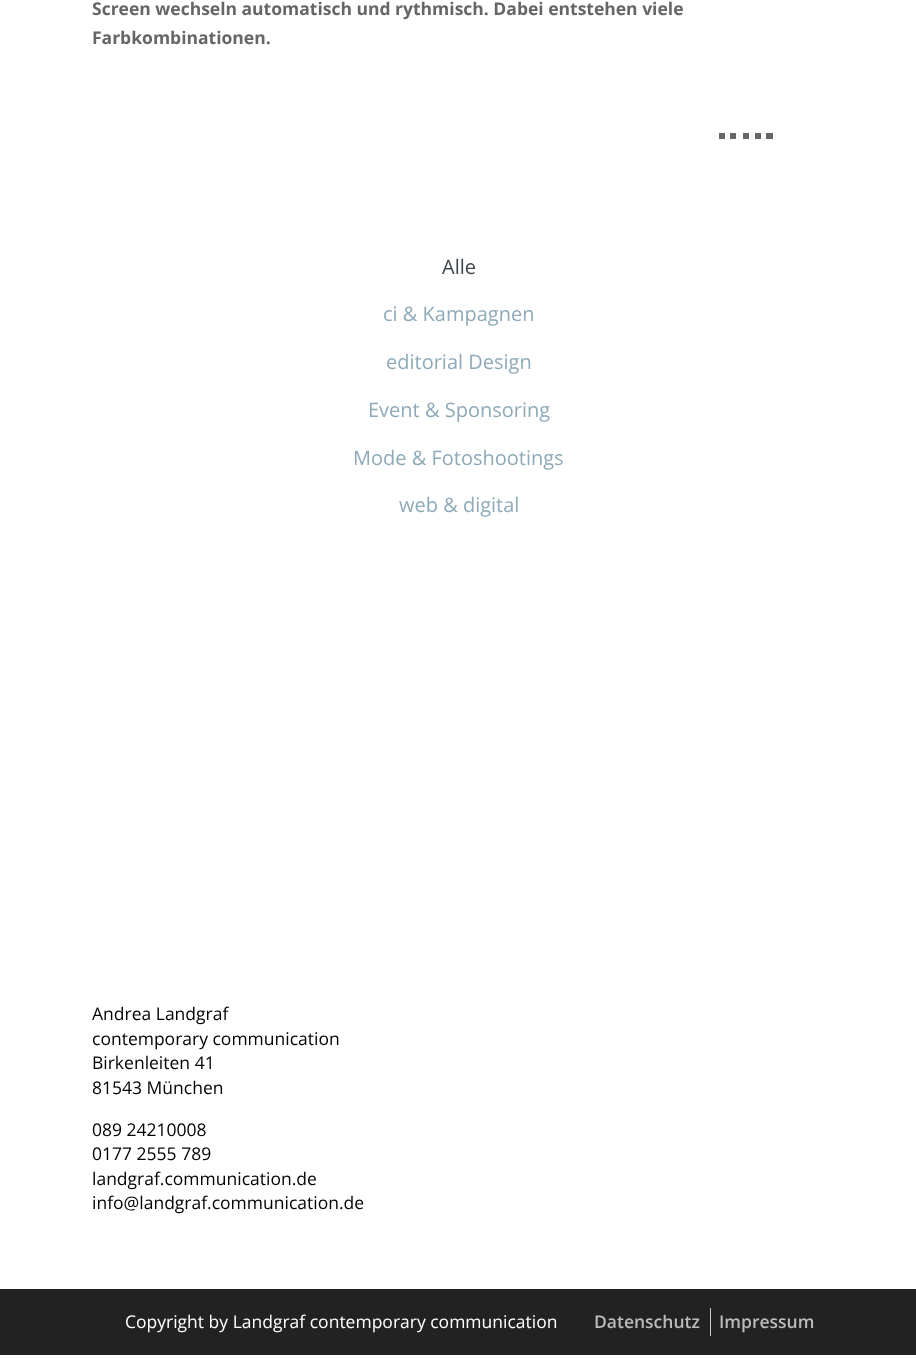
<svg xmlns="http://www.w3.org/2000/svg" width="916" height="1370">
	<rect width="100%" height="100%" fill="#FFFFFF" />
	<g font-family="Open Sans" font-size="17.5" font-weight="700" fill="#666666">
		<text x="92" y="15">Screen wechseln automatisch und rythmisch. Dabei entstehen viele</text>
		<text x="92" y="44">Farbkombinationen.</text>
	</g>
	<rect x="719" y="133" width="6" height="6" fill="#666666" />
	<rect x="730" y="133" width="6" height="6" fill="#666666" />
	<rect x="743" y="133" width="6" height="6" fill="#666666" />
	<rect x="755" y="133" width="6" height="6" fill="#666666" />
	<rect x="766" y="133" width="7" height="6" fill="#666666" />
	<text x="442" y="274" font-family="Open Sans" font-size="20" fill="#3E464D">Alle</text>
	<g font-family="Open Sans" font-size="20" fill="#8EAAB9">
		<text x="383" y="321">ci &amp; Kampagnen</text>
		<text x="386" y="369">editorial Design</text>
		<text x="368" y="417">Event &amp; Sponsoring</text>
		<text x="353" y="465">Mode &amp; Fotoshootings</text>
		<text x="399" y="512">web &amp; digital</text>
	</g>
	<g font-family="Open Sans" font-size="17.5" fill="#000000">
		<text x="92" y="1020">Andrea Landgraf</text>
		<text x="92" y="1045">contemporary communication</text>
		<text x="92" y="1069">Birkenleiten 41</text>
		<text x="92" y="1094">81543 München</text>
		<text x="92" y="1136">089 24210008</text>
		<text x="92" y="1160">0177 2555 789</text>
		<text x="92" y="1185">landgraf.communication.de</text>
		<text x="92" y="1209">info@landgraf.communication.de</text>
	</g>
	<rect x="0" y="1289" width="916" height="66" fill="#222222" />
	<text x="125" y="1328" font-family="Open Sans" font-size="17.5" fill="#FFFFFF">Copyright by Landgraf contemporary communication</text>
	<rect x="710" y="1308" width="1" height="28" fill="#CCCCCC" />
	<g font-family="Open Sans" font-size="17.5" font-weight="600" fill="#BBBBBB">
		<text x="594" y="1328">Datenschutz</text>
		<text x="719" y="1328">Impressum</text>
	</g>
</svg>
